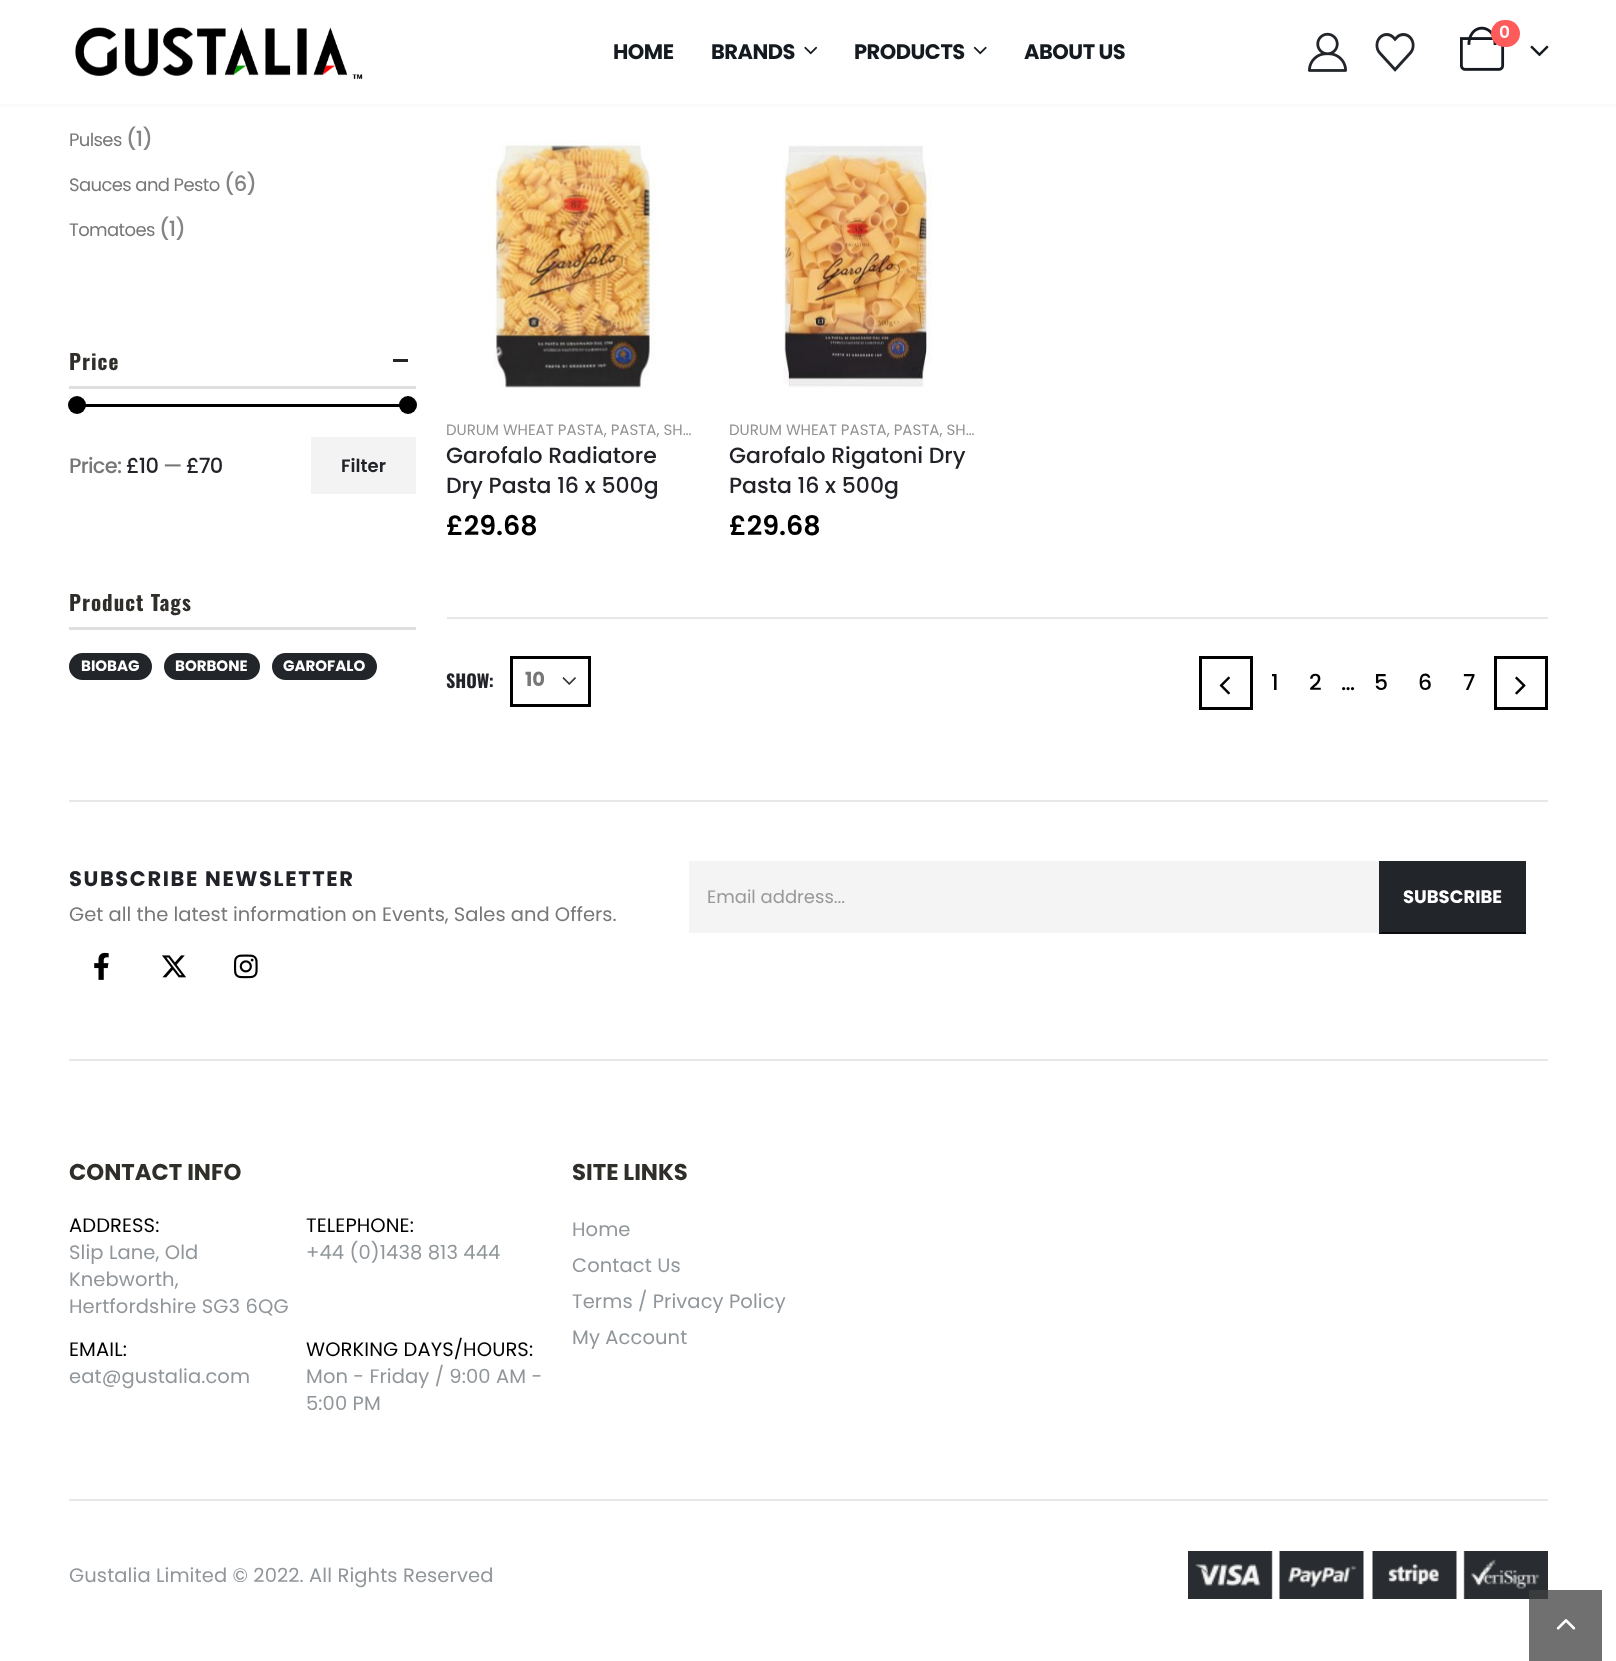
<svg xmlns="http://www.w3.org/2000/svg" width="1616" height="1661">
	<rect width="100%" height="100%" fill="#FFFFFF" />
	<rect x="0" y="0" width="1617" height="104" fill="#000000" fill-opacity="0.06" filter="blur(2px)" />
	<rect x="0" y="0" width="1616" height="104" fill="#FFFFFF" />
	<image x="75" y="27" width="288" height="52" href="assets/img1.png" />
	<g font-family="Poppins" font-size="21" font-weight="700" letter-spacing="-0.5" fill="#141A1F">
		<text x="613" y="59">HOME</text>
		<text x="711" y="59">BRANDS</text>
	</g>
	<image x="804" y="46" width="14" height="9" href="assets/img2.png" />
	<text x="854" y="59" font-family="Poppins" font-size="21" font-weight="700" letter-spacing="-0.5" fill="#141A1F">PRODUCTS</text>
	<image x="973" y="46" width="14" height="9" href="assets/img3.png" />
	<text x="1024" y="59" font-family="Poppins" font-size="21" font-weight="700" letter-spacing="-0.5" fill="#141A1F">ABOUT US</text>
	<image x="1308" y="32" width="39" height="40" href="assets/img4.png" />
	<image x="1375" y="33" width="40" height="39" href="assets/img5.png" />
	<image x="1460" y="26" width="45" height="45" href="assets/img6.png" />
	<rect x="1491" y="20" width="29" height="27" rx="13.5" fill="#FF5B5B" />
	<text x="1499" y="38" font-family="Poppins" font-size="17" font-weight="600" fill="#FFFFFF">0</text>
	<image x="1530" y="45" width="19" height="12" href="assets/img7.png" />
	<text x="69" y="146" font-family="Poppins" font-size="18" letter-spacing="-0.6" fill="#777777">Pulses</text>
	<text x="126" y="146" font-family="Poppins" font-size="21" font-weight="500" letter-spacing="-0.6" fill="#848484">(1)</text>
	<text x="69" y="191" font-family="Poppins" font-size="18" letter-spacing="-0.6" fill="#777777">Sauces and Pesto</text>
	<text x="224" y="191" font-family="Poppins" font-size="21" font-weight="500" letter-spacing="-0.6" fill="#848484">(6)</text>
	<text x="69" y="236" font-family="Poppins" font-size="18" letter-spacing="-0.6" fill="#777777">Tomatoes</text>
	<text x="159" y="236" font-family="Poppins" font-size="21" font-weight="500" letter-spacing="-0.6" fill="#848484">(1)</text>
	<rect x="69" y="386" width="347" height="3" fill="#DFDFDF" />
	<text x="69" y="370" font-family="Oswald" font-size="21" font-weight="700" letter-spacing="1" fill="#302E2A">Price</text>
	<rect x="393" y="359" width="15" height="3" fill="#222529" />
	<rect x="77" y="404" width="331" height="3" fill="#000000" />
	<circle cx="77" cy="405" r="9" fill="#000000" />
	<circle cx="408" cy="405" r="9" fill="#000000" />
	<text x="69" y="473" font-family="Poppins" font-size="21" font-weight="500" letter-spacing="-0.75" fill="#777777">Price:</text>
	<text x="126" y="473" font-family="Poppins" font-size="21" font-weight="500" letter-spacing="-0.75" fill="#222329">£10</text>
	<text x="163" y="473" font-family="Poppins" font-size="21" font-weight="500" letter-spacing="-0.75" fill="#777777">—</text>
	<text x="186" y="473" font-family="Poppins" font-size="21" font-weight="500" letter-spacing="-0.75" fill="#222329">£70</text>
	<rect x="311" y="437" width="105" height="57" fill="#F3F3F3" />
	<text x="341" y="472" font-family="Poppins" font-size="18" font-weight="600" fill="#222329">Filter</text>
	<rect x="69" y="627" width="347" height="3" fill="#DFDFDF" />
	<text x="69" y="611" font-family="Oswald" font-size="21" font-weight="700" letter-spacing="1" fill="#302E2A">Product Tags</text>
	<rect x="69" y="653" width="83" height="27" rx="13.5" fill="#222529" />
	<text x="81" y="671" font-family="Poppins" font-size="15" font-weight="700" fill="#FFFFFF">BIOBAG</text>
	<rect x="164" y="653" width="96" height="27" rx="13.5" fill="#222529" />
	<text x="175" y="671" font-family="Poppins" font-size="15" font-weight="700" fill="#FFFFFF">BORBONE</text>
	<rect x="272" y="653" width="105" height="27" rx="13.5" fill="#222529" />
	<text x="283" y="671" font-family="Poppins" font-size="15" font-weight="700" fill="#FFFFFF">GAROFALO</text>
	<image x="487" y="140" width="172" height="248" href="assets/img8.png" />
	<text x="446" y="435" font-family="Poppins" font-size="15" fill="#929292">DURUM WHEAT PASTA, PASTA, SH…</text>
	<g font-family="Poppins" font-size="22" font-weight="500" fill="#222329">
		<text x="446" y="463">Garofalo Radiatore</text>
		<text x="446" y="493">Dry Pasta 16 x 500g</text>
	</g>
	<text x="446" y="535" font-family="Poppins" font-size="27" font-weight="600" fill="#000000">£29.68</text>
	<image x="783" y="145" width="149" height="244" href="assets/img9.png" />
	<text x="729" y="435" font-family="Poppins" font-size="15" fill="#929292">DURUM WHEAT PASTA, PASTA, SH…</text>
	<g font-family="Poppins" font-size="22" font-weight="500" fill="#222329">
		<text x="729" y="463">Garofalo Rigatoni Dry</text>
		<text x="729" y="493">Pasta 16 x 500g</text>
	</g>
	<text x="729" y="535" font-family="Poppins" font-size="27" font-weight="600" fill="#000000">£29.68</text>
	<rect x="447" y="617" width="1101" height="2" fill="#E7E7E7" />
	<text x="446" y="688" font-family="Oswald" font-size="18" font-weight="700" fill="#222329">SHOW:</text>
	<image x="562" y="677" width="14" height="8" href="assets/img10.png" />
	<rect x="511.5" y="657.5" width="78" height="48" fill="none" stroke="#000000" stroke-width="3" />
	<text x="525" y="686" font-family="Poppins" font-size="19.5" font-weight="700" fill="#777777">10</text>
	<rect x="1200.5" y="657.5" width="51" height="51" fill="none" stroke="#000000" stroke-width="3" />
	<image x="1219" y="676" width="11" height="19" href="assets/img11.png" />
	<g font-family="Poppins" font-size="22" font-weight="500" fill="#000000">
		<text x="1271" y="690">1</text>
		<text x="1309" y="690">2</text>
		<text x="1341" y="690">…</text>
		<text x="1374" y="690">5</text>
		<text x="1418" y="690">6</text>
		<text x="1463" y="690">7</text>
	</g>
	<rect x="1495.5" y="657.5" width="51" height="51" fill="none" stroke="#000000" stroke-width="3" />
	<image x="1515" y="676" width="11" height="19" href="assets/img12.png" />
	<rect x="69" y="800" width="1479" height="2" fill="#E7E7E7" />
	<text x="69" y="886" font-family="Poppins" font-size="21" font-weight="700" letter-spacing="1.6" fill="#222329">SUBSCRIBE NEWSLETTER</text>
	<text x="69" y="921" font-family="Poppins" font-size="19.5" fill="#777777">Get all the latest information on Events, Sales and Offers.</text>
	<rect x="689" y="861" width="690" height="72" fill="#F4F4F4" />
	<text x="707" y="903" font-family="Poppins" font-size="18" fill="#999999">Email address...</text>
	<rect x="1381" y="861" width="145" height="71" fill="#222529" />
	<rect x="1379" y="932" width="147" height="2" fill="#0B0C0E" />
	<rect x="1379" y="861" width="2" height="72" fill="#222529" />
	<text x="1403" y="903" font-family="Poppins" font-size="18" font-weight="700" fill="#FFFFFF">SUBSCRIBE</text>
	<image x="94" y="952" width="15" height="28" href="assets/img13.png" />
	<image x="162" y="955" width="24" height="23" href="assets/img14.png" />
	<image x="234" y="954" width="24" height="25" href="assets/img15.png" />
	<rect x="69" y="1059" width="1479" height="2" fill="#E7E7E7" />
	<text x="69" y="1180" font-family="Poppins" font-size="22.75" font-weight="700" fill="#302E2A">CONTACT INFO</text>
	<text x="69" y="1232" font-family="Poppins" font-size="19.5" letter-spacing="0.1" fill="#000000">ADDRESS:</text>
	<g font-family="Poppins" font-size="19.5" letter-spacing="0.1" fill="#90969A">
		<text x="69" y="1259">Slip Lane, Old</text>
		<text x="69" y="1286">Knebworth,</text>
		<text x="69" y="1313">Hertfordshire SG3 6QG</text>
	</g>
	<text x="306" y="1232" font-family="Poppins" font-size="19.5" letter-spacing="0.1" fill="#000000">TELEPHONE:</text>
	<text x="306" y="1259" font-family="Poppins" font-size="19.5" letter-spacing="0.1" fill="#90969A">+44 (0)1438 813 444</text>
	<text x="69" y="1356" font-family="Poppins" font-size="19.5" letter-spacing="0.1" fill="#000000">EMAIL:</text>
	<text x="69" y="1383" font-family="Poppins" font-size="19.5" letter-spacing="0.1" fill="#90969A">eat@gustalia.com</text>
	<text x="306" y="1356" font-family="Poppins" font-size="19.5" letter-spacing="0.1" fill="#000000">WORKING DAYS/HOURS:</text>
	<g font-family="Poppins" font-size="19.5" letter-spacing="0.1" fill="#90969A">
		<text x="306" y="1383">Mon - Friday / 9:00 AM -</text>
		<text x="306" y="1410">5:00 PM</text>
	</g>
	<text x="572" y="1180" font-family="Poppins" font-size="22.75" font-weight="700" fill="#302E2A">SITE LINKS</text>
	<g font-family="Poppins" font-size="19.5" letter-spacing="0.1" fill="#90969A">
		<text x="572" y="1236">Home</text>
		<text x="572" y="1272">Contact Us</text>
		<text x="572" y="1308">Terms / Privacy Policy</text>
		<text x="572" y="1344">My Account</text>
	</g>
	<rect x="69" y="1499" width="1479" height="2" fill="#E7E7E7" />
	<text x="69" y="1582" font-family="Poppins" font-size="19.5" letter-spacing="0.1" fill="#90969A">Gustalia Limited © 2022. All Rights Reserved</text>
	<image x="1188" y="1551" width="360" height="48" href="assets/img16.png" />
	<rect x="1529" y="1590" width="73" height="71" fill="#404040" fill-opacity="0.75" />
	<image x="1556" y="1619" width="20" height="11" href="assets/img17.png" />
</svg>
